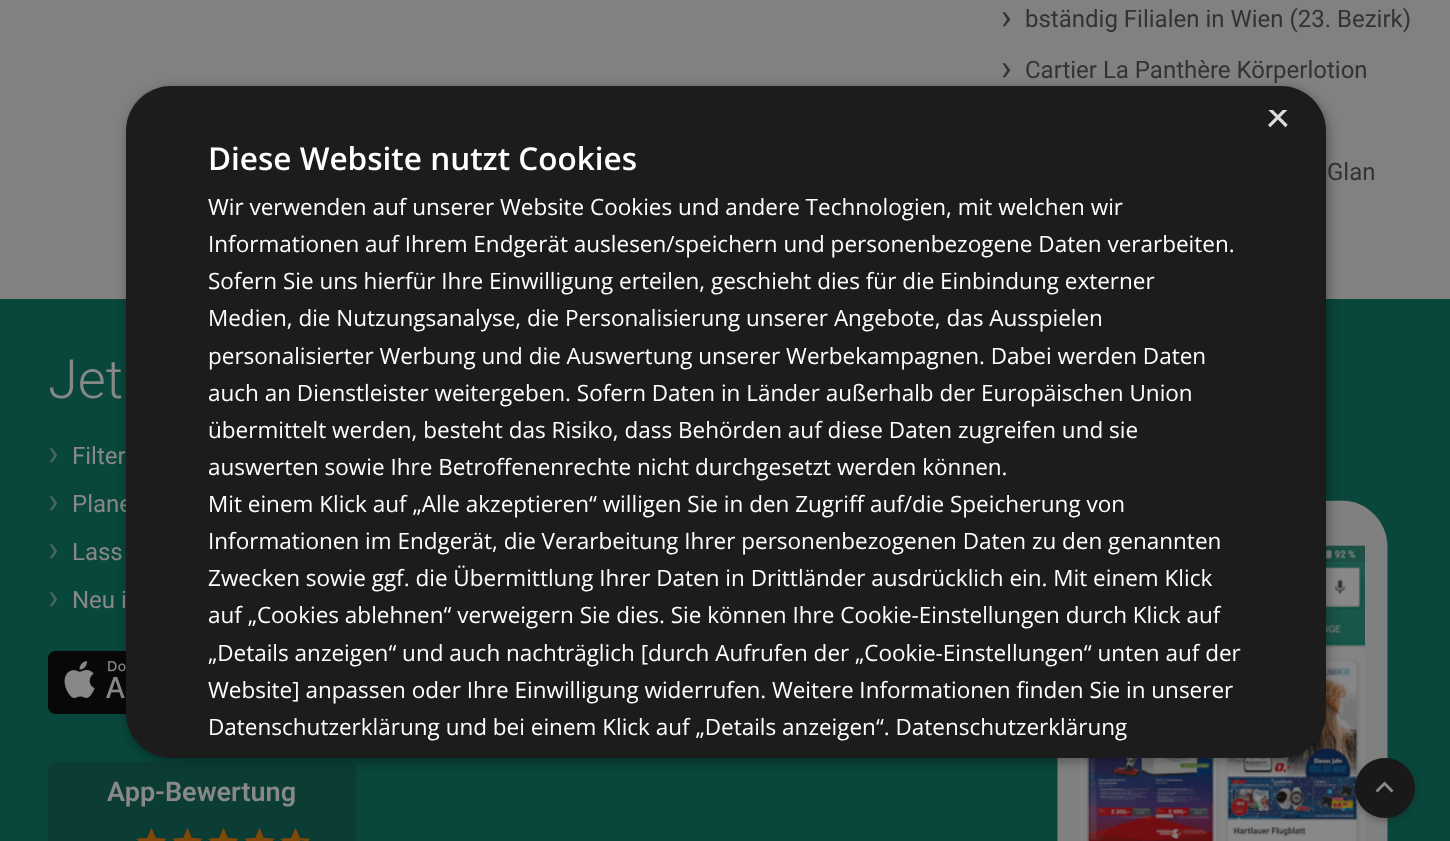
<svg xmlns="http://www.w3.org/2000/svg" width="1450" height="841">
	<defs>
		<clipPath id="clip1"><rect x="278" y="825" width="22" height="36" /></clipPath>
		<clipPath id="clip2"><rect x="1266" y="110" width="23" height="22" /></clipPath>
	</defs>
	<rect width="100%" height="100%" fill="#818181" />
	<text x="1001" y="29" font-family="Roboto" font-size="36" fill="#333333">›</text>
	<text x="1025" y="27" font-family="Roboto" font-size="24" fill="#333333">bständig Filialen in Wien (23. Bezirk)</text>
	<text x="1001" y="80" font-family="Roboto" font-size="36" fill="#333333">›</text>
	<g font-family="Roboto" font-size="24" fill="#333333">
		<text x="1025" y="78">Cartier La Panthère Körperlotion</text>
		<text x="1327" y="180">Glan</text>
	</g>
	<rect x="0" y="299" width="1450" height="542" fill="#09463B" />
	<text x="48" y="398" font-family="Roboto" font-size="54" font-weight="300" fill="#888888">Jet</text>
	<text x="48" y="465" font-family="Roboto" font-size="36" fill="#496762">›</text>
	<text x="72" y="464" font-family="Roboto" font-size="24" fill="#888888">Filter</text>
	<text x="48" y="513" font-family="Roboto" font-size="36" fill="#496762">›</text>
	<text x="72" y="512" font-family="Roboto" font-size="24" fill="#888888">Plane</text>
	<text x="48" y="561" font-family="Roboto" font-size="36" fill="#496762">›</text>
	<text x="72" y="560" font-family="Roboto" font-size="24" fill="#888888">Lass</text>
	<text x="48" y="609" font-family="Roboto" font-size="36" fill="#496762">›</text>
	<text x="72" y="608" font-family="Roboto" font-size="24" fill="#888888">Neu i</text>
	<rect x="54" y="683" width="191" height="6" fill="#191919" filter="blur(9px)" />
	<image x="48" y="651" width="79" height="63" href="assets/img1.png" />
	<rect x="48" y="762" width="308" height="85" rx="6" fill="#0C3D34" />
	<text x="107" y="801" font-family="Roboto" font-size="27" font-weight="600" fill="#888888">App-Bewertung</text>
	<image x="136" y="828" width="31" height="13" href="assets/img2.png" />
	<path d="M151.5 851L161 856.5L158.5 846L166.5 839L155.5 838L151.5 828L147.5 838L136.5 839L144.5 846L142 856.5Z" fill="#814909" />
	<image x="172" y="828" width="31" height="13" href="assets/img2.png" />
	<path d="M187.5 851L197 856.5L194.5 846L202.5 839L191.5 838L187.5 828L183.5 838L172.5 839L180.5 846L178 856.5Z" fill="#814909" />
	<image x="208" y="828" width="31" height="13" href="assets/img2.png" />
	<path d="M223.5 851L233 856.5L230.5 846L238.5 839L227.5 838L223.5 828L219.5 838L208.5 839L216.5 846L214 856.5Z" fill="#814909" />
	<image x="244" y="828" width="31" height="13" href="assets/img2.png" />
	<path d="M259.5 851L269 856.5L266.5 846L274.5 839L263.5 838L259.5 828L255.5 838L244.5 839L252.5 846L250 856.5Z" fill="#814909" />
	<image x="280" y="828" width="31" height="13" href="assets/img2.png" />
	<g clip-path="url(#clip1)">
		<path d="M295.5 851L305 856.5L302.5 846L310.5 839L299.5 838L295.5 828L291.5 838L280.5 839L288.5 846L286 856.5Z" fill="#814909" />
	</g>
	<image x="1057" y="500" width="331" height="341" href="assets/img3.png" />
	<rect x="128" y="89" width="1200" height="672" rx="45" fill="#000000" fill-opacity="0.35" filter="blur(6px)" />
	<rect x="126" y="86" width="1200" height="672" rx="45" fill="#1C1C1C" />
	<g clip-path="url(#clip2)">
		<text x="1265" y="132" font-family="Liberation Sans" font-size="44" fill="#DDDDDD">×</text>
	</g>
	<text x="208" y="170" font-family="Open Sans" font-size="31.5" font-weight="600" fill="#FFFFFF">Diese Website nutzt Cookies</text>
	<g font-family="Open Sans" font-size="22.5" fill="#FFFFFF">
		<text x="208" y="215">Wir verwenden auf unserer Website Cookies und andere Technologien, mit welchen wir</text>
		<text x="208" y="252">Informationen auf Ihrem Endgerät auslesen/speichern und personenbezogene Daten verarbeiten.</text>
		<text x="208" y="289">Sofern Sie uns hierfür Ihre Einwilligung erteilen, geschieht dies für die Einbindung externer</text>
		<text x="208" y="326">Medien, die Nutzungsanalyse, die Personalisierung unserer Angebote, das Ausspielen</text>
		<text x="208" y="364">personalisierter Werbung und die Auswertung unserer Werbekampagnen. Dabei werden Daten</text>
		<text x="208" y="401">auch an Dienstleister weitergeben. Sofern Daten in Länder außerhalb der Europäischen Union</text>
		<text x="208" y="438">übermittelt werden, besteht das Risiko, dass Behörden auf diese Daten zugreifen und sie</text>
		<text x="208" y="475">auswerten sowie Ihre Betroffenenrechte nicht durchgesetzt werden können.</text>
		<text x="208" y="512">Mit einem Klick auf „Alle akzeptieren“ willigen Sie in den Zugriff auf/die Speicherung von</text>
		<text x="208" y="549">Informationen im Endgerät, die Verarbeitung Ihrer personenbezogenen Daten zu den genannten</text>
		<text x="208" y="586">Zwecken sowie ggf. die Übermittlung Ihrer Daten in Drittländer ausdrücklich ein. Mit einem Klick</text>
		<text x="208" y="623">auf „Cookies ablehnen“ verweigern Sie dies. Sie können Ihre Cookie-Einstellungen durch Klick auf</text>
		<text x="208" y="661">„Details anzeigen“ und auch nachträglich [durch Aufrufen der „Cookie-Einstellungen“ unten auf der</text>
		<text x="208" y="698">Website] anpassen oder Ihre Einwilligung widerrufen. Weitere Informationen finden Sie in unserer</text>
		<text x="208" y="735">Datenschutzerklärung und bei einem Klick auf „Details anzeigen“. Datenschutzerklärung</text>
	</g>
	<rect x="1355" y="761" width="60" height="60" rx="30" fill="#191919" fill-opacity="0.3" filter="blur(3px)" />
	<circle cx="1385" cy="788" r="30" fill="#191919" />
	<path d="M1377.5 792.5L1384.5 785.5L1391.5 792.5L1393.5 790.5L1384.5 781.5L1375.5 790.5Z" fill="#888888" />
</svg>
